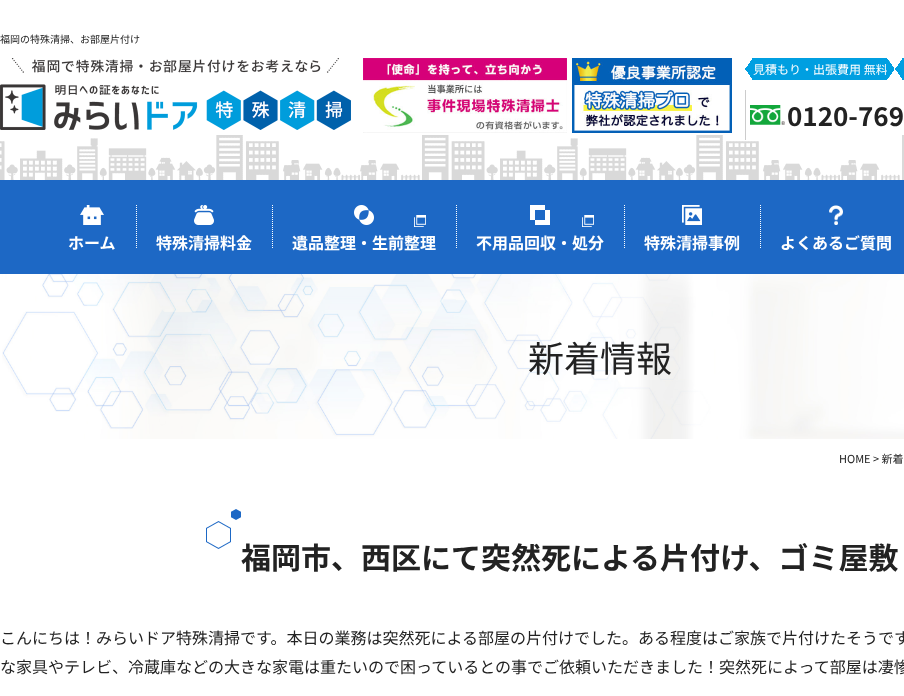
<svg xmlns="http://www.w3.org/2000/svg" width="904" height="696">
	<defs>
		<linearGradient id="g1" gradientUnits="userSpaceOnUse" x1="744" y1="60" x2="754" y2="67"><stop offset="0.5" stop-color="#FFFFFF" /><stop offset="0.5" stop-color="#009FE1" /></linearGradient>
		<linearGradient id="g2" gradientUnits="userSpaceOnUse" x1="744" y1="78" x2="754" y2="71"><stop offset="0.5" stop-color="#FFFFFF" /><stop offset="0.5" stop-color="#009FE1" /></linearGradient>
		<linearGradient id="g3" gradientUnits="userSpaceOnUse" x1="896" y1="60" x2="886" y2="67"><stop offset="0.5" stop-color="#FFFFFF" /><stop offset="0.51" stop-color="#009FE1" /></linearGradient>
		<linearGradient id="g4" gradientUnits="userSpaceOnUse" x1="896" y1="78" x2="886" y2="71"><stop offset="0.5" stop-color="#FFFFFF" /><stop offset="0.51" stop-color="#009FE1" /></linearGradient>
		<linearGradient id="g5" gradientUnits="userSpaceOnUse" x1="894" y1="60" x2="904" y2="67"><stop offset="0.5" stop-color="#FFFFFF" /><stop offset="0.5" stop-color="#009FE1" /></linearGradient>
		<linearGradient id="g6" gradientUnits="userSpaceOnUse" x1="894" y1="78" x2="904" y2="71"><stop offset="0.5" stop-color="#FFFFFF" /><stop offset="0.5" stop-color="#009FE1" /></linearGradient>
	</defs>
	<rect width="100%" height="100%" fill="#FFFFFF" />
	<text x="0" y="43" font-family="Noto Sans JP" font-size="10" fill="#222222">福岡の特殊清掃、お部屋片付け</text>
	<image x="0" y="135" width="904" height="45" href="assets/img1.png" />
	<image x="0" y="58" width="351" height="72" href="assets/img2.png" />
	<image x="363" y="58" width="204" height="75" href="assets/img3.png" />
	<image x="572" y="58" width="160" height="75" href="assets/img4.png" />
	<rect x="753" y="58" width="134" height="22" fill="#009FE1" />
	<rect x="745" y="58" width="8" height="11" fill="url(#g1)" />
	<rect x="745" y="69" width="8" height="11" fill="url(#g2)" />
	<text x="753" y="74" font-family="Noto Sans JP" font-size="12" fill="#FFFFFF">見積もり・出張費用 無料</text>
	<rect x="887" y="58" width="7" height="11" fill="url(#g3)" />
	<rect x="887" y="69" width="7" height="11" fill="url(#g4)" />
	<rect x="903" y="58" width="1" height="22" fill="#009FE1" />
	<rect x="895" y="58" width="8" height="11" fill="url(#g5)" />
	<rect x="895" y="69" width="8" height="11" fill="url(#g6)" />
	<rect x="745" y="90" width="1" height="50" fill="#CCCCCC" />
	<image x="750" y="105" width="35" height="20" href="assets/img5.png" />
	<text x="787" y="126" font-family="Noto Sans JP" font-size="26" font-weight="700" fill="#222222">0120-769</text>
	<rect x="0" y="180" width="904" height="94" fill="#1D68C5" />
	<image x="80" y="205" width="24" height="20" href="assets/img6.png" />
	<text x="68" y="249" font-family="Noto Sans JP" font-size="16" font-weight="700" fill="#FFFFFF">ホーム</text>
	<path d="M136.5 205V249" fill="none" stroke="#FFFFFF" stroke-dasharray="1 1" />
	<image x="194" y="205" width="20" height="20" href="assets/img7.png" />
	<text x="156" y="249" font-family="Noto Sans JP" font-size="16" font-weight="700" fill="#FFFFFF">特殊清掃料金</text>
	<path d="M272.5 205V249" fill="none" stroke="#FFFFFF" stroke-dasharray="1 1" />
	<image x="354" y="205" width="20" height="20" href="assets/img8.png" />
	<image x="414" y="215" width="12" height="12" href="assets/img9.png" />
	<text x="292" y="249" font-family="Noto Sans JP" font-size="16" font-weight="700" fill="#FFFFFF">遺品整理・生前整理</text>
	<path d="M456.5 205V249" fill="none" stroke="#FFFFFF" stroke-dasharray="1 1" />
	<image x="530" y="205" width="20" height="20" href="assets/img10.png" />
	<image x="582" y="215" width="12" height="12" href="assets/img9.png" />
	<text x="476" y="249" font-family="Noto Sans JP" font-size="16" font-weight="700" fill="#FFFFFF">不用品回収・処分</text>
	<path d="M624.5 205V249" fill="none" stroke="#FFFFFF" stroke-dasharray="1 1" />
	<image x="682" y="205" width="20" height="20" href="assets/img11.png" />
	<text x="644" y="249" font-family="Noto Sans JP" font-size="16" font-weight="700" fill="#FFFFFF">特殊清掃事例</text>
	<path d="M760.5 205V249" fill="none" stroke="#FFFFFF" stroke-dasharray="1 1" />
	<image x="829" y="205" width="14" height="20" href="assets/img12.png" />
	<text x="780" y="249" font-family="Noto Sans JP" font-size="16" font-weight="700" fill="#FFFFFF">よくあるご質問</text>
	<image x="2" y="274" width="902" height="165" href="assets/img13.png" />
	<text x="528" y="372" font-family="Noto Sans JP" font-size="36" fill="#222222">新着情報</text>
	<text x="839" y="463" font-family="Noto Sans JP" font-size="11" fill="#222222">HOME &gt; 新着</text>
	<image x="206" y="509" width="35" height="40" href="assets/img14.png" />
	<text x="241" y="569" font-family="Noto Sans JP" font-size="30" font-weight="700" fill="#222222">福岡市、西区にて突然死による片付け、ゴミ屋敷</text>
	<g font-family="Noto Sans JP" font-size="16" fill="#222222">
		<text x="0" y="644">こんにちは！みらいドア特殊清掃です。本日の業務は突然死による部屋の片付けでした。ある程度はご家族で片付けたそうです</text>
		<text x="0" y="673">な家具やテレビ、冷蔵庫などの大きな家電は重たいので困っているとの事でご依頼いただきました！突然死によって部屋は凄惨</text>
	</g>
</svg>
